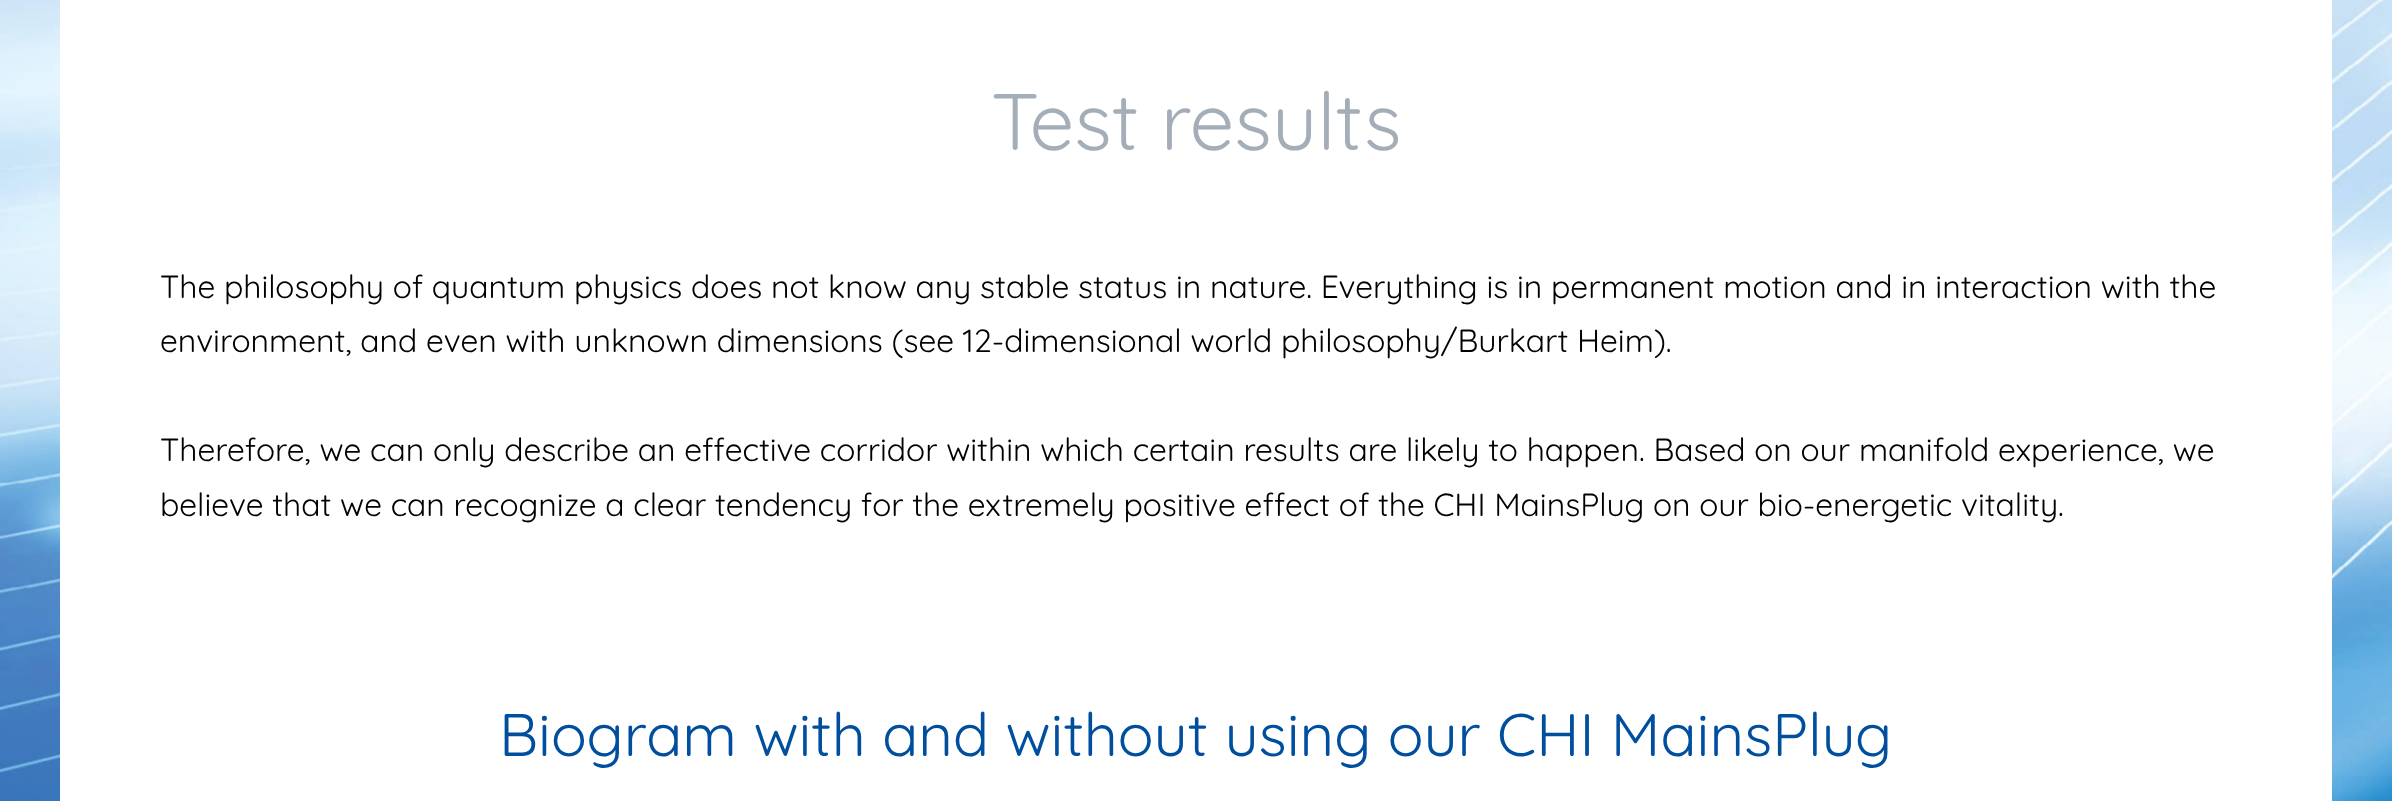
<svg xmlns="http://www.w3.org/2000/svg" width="2392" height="801">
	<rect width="100%" height="100%" fill="#FFFFFF" />
	<image x="0" y="0" width="2392" height="801" href="assets/img1.png" />
	<rect x="60" y="0" width="2272" height="801" fill="#FFFFFF" />
	<text x="991" y="150" font-family="Quicksand" font-size="80" font-weight="300" fill="#A4AEB8">Test results</text>
	<g font-family="Quicksand" font-size="32" font-weight="300" fill="#000000">
		<text x="160" y="298">The philosophy of quantum physics does not know any stable status in nature. Everything is in permanent motion and in interaction with the</text>
		<text x="160" y="352">environment, and even with unknown dimensions (see 12-dimensional world philosophy/Burkart Heim).</text>
		<text x="160" y="461">Therefore, we can only describe an effective corridor within which certain results are likely to happen. Based on our manifold experience, we</text>
		<text x="160" y="516">believe that we can recognize a clear tendency for the extremely positive effect of the CHI MainsPlug on our bio-energetic vitality.</text>
	</g>
	<text x="499" y="756" font-family="Quicksand" font-size="60" font-weight="300" fill="#004E9E">Biogram with and without using our CHI MainsPlug</text>
</svg>
